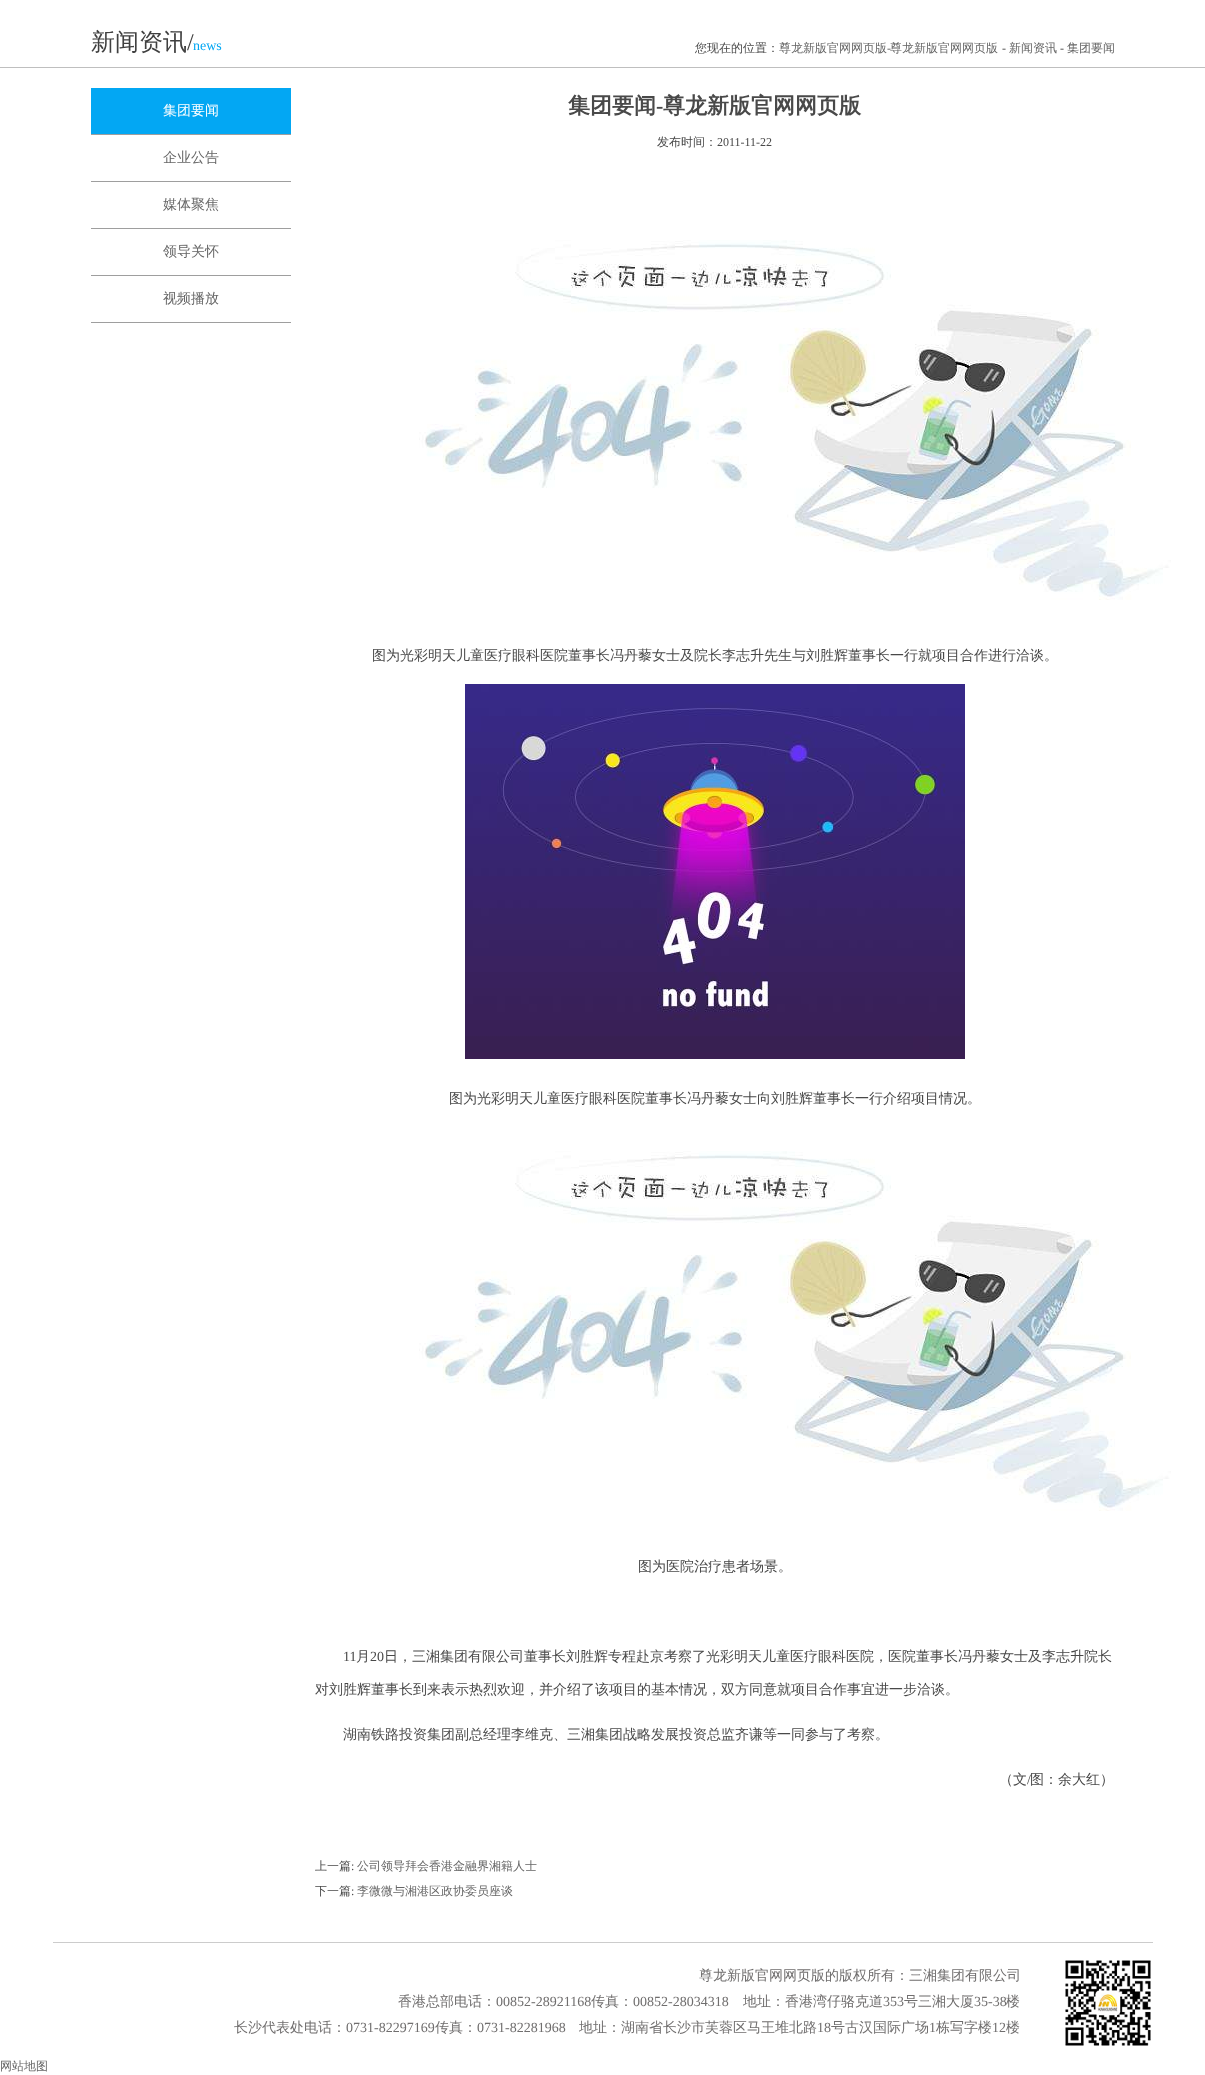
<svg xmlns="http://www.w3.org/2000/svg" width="1205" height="2075">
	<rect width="100%" height="100%" fill="#FFFFFF" />
	<rect x="0" y="67" width="1205" height="1" fill="#BFBFBF" />
	<text x="91" y="50" font-family="WenQuanYi Zen Hei" font-size="24" font-weight="500" fill="#404040">新闻资讯</text>
	<text x="187" y="50" font-family="Liberation Serif" font-size="24" fill="#404040">/</text>
	<text x="193" y="50" font-family="Liberation Serif" font-size="14" fill="#03A7F3">news</text>
	<text x="695" y="52" font-family="WenQuanYi Zen Hei" font-size="12" font-weight="500" fill="#494949">您现在的位置：</text>
	<text x="779" y="52" font-family="WenQuanYi Zen Hei" font-size="12" font-weight="500" fill="#666666">尊龙新版官网网页版</text>
	<text x="887" y="52" font-family="Liberation Serif" font-size="12" fill="#666666">-</text>
	<text x="890" y="52" font-family="WenQuanYi Zen Hei" font-size="12" font-weight="500" fill="#666666">尊龙新版官网网页版</text>
	<text x="1002" y="52" font-family="Liberation Serif" font-size="12" fill="#494949">-</text>
	<text x="1009" y="52" font-family="WenQuanYi Zen Hei" font-size="12" font-weight="500" fill="#666666">新闻资讯</text>
	<text x="1060" y="52" font-family="Liberation Serif" font-size="12" fill="#494949">-</text>
	<text x="1067" y="52" font-family="WenQuanYi Zen Hei" font-size="12" font-weight="500" fill="#666666">集团要闻</text>
	<rect x="91" y="88" width="200" height="46" fill="#03A7F3" />
	<rect x="91" y="134" width="200" height="1" fill="#9E9E9E" />
	<text x="163" y="115" font-family="WenQuanYi Zen Hei" font-size="14" font-weight="500" fill="#FFFFFF">集团要闻</text>
	<rect x="91" y="181" width="200" height="1" fill="#9E9E9E" />
	<text x="163" y="162" font-family="WenQuanYi Zen Hei" font-size="14" font-weight="500" fill="#666666">企业公告</text>
	<rect x="91" y="228" width="200" height="1" fill="#9E9E9E" />
	<text x="163" y="209" font-family="WenQuanYi Zen Hei" font-size="14" font-weight="500" fill="#666666">媒体聚焦</text>
	<rect x="91" y="275" width="200" height="1" fill="#9E9E9E" />
	<text x="163" y="256" font-family="WenQuanYi Zen Hei" font-size="14" font-weight="500" fill="#666666">领导关怀</text>
	<rect x="91" y="322" width="200" height="1" fill="#9E9E9E" />
	<text x="163" y="303" font-family="WenQuanYi Zen Hei" font-size="14" font-weight="500" fill="#666666">视频播放</text>
	<text x="568" y="113" font-family="WenQuanYi Zen Hei" font-size="22" font-weight="700" fill="#494949">集团要闻</text>
	<text x="656" y="113" font-family="Liberation Serif" font-size="22" font-weight="700" fill="#494949">-</text>
	<text x="663" y="113" font-family="WenQuanYi Zen Hei" font-size="22" font-weight="700" fill="#494949">尊龙新版官网网页版</text>
	<text x="657" y="146" font-family="WenQuanYi Zen Hei" font-size="12" font-weight="500" fill="#494949">发布时间：</text>
	<text x="717" y="146" font-family="Liberation Serif" font-size="12" fill="#494949">2011-11-22</text>
	<image x="419" y="240" width="752" height="360" href="assets/img1.png" />
	<text x="372" y="660" font-family="WenQuanYi Zen Hei" font-size="14" font-weight="500" fill="#494949">图为光彩明天儿童医疗眼科医院董事长冯丹藜女士及院长李志升先生与刘胜辉董事长一行就项目合作进行洽谈。</text>
	<image x="465" y="684" width="500" height="375" href="assets/img2.png" />
	<text x="449" y="1103" font-family="WenQuanYi Zen Hei" font-size="14" font-weight="500" fill="#494949">图为光彩明天儿童医疗眼科医院董事长冯丹藜女士向刘胜辉董事长一行介绍项目情况。</text>
	<image x="419" y="1151" width="752" height="360" href="assets/img1.png" />
	<text x="638" y="1571" font-family="WenQuanYi Zen Hei" font-size="14" font-weight="500" fill="#494949">图为医院治疗患者场景。</text>
	<text x="343" y="1661" font-family="Liberation Serif" font-size="14" fill="#494949">11</text>
	<text x="356" y="1661" font-family="WenQuanYi Zen Hei" font-size="14" font-weight="500" fill="#494949">月</text>
	<text x="370" y="1661" font-family="Liberation Serif" font-size="14" fill="#494949">20</text>
	<g font-family="WenQuanYi Zen Hei" font-size="14" font-weight="500" fill="#494949">
		<text x="384" y="1661">日，三湘集团有限公司董事长刘胜辉专程赴京考察了光彩明天儿童医疗眼科医院，医院董事长冯丹藜女士及李志升院长</text>
		<text x="315" y="1694">对刘胜辉董事长到来表示热烈欢迎，并介绍了该项目的基本情况，双方同意就项目合作事宜进一步洽谈。</text>
		<text x="343" y="1739">湖南铁路投资集团副总经理李维克、三湘集团战略发展投资总监齐谦等一同参与了考察。</text>
		<text x="999" y="1784">（文</text>
	</g>
	<text x="1027" y="1784" font-family="Liberation Serif" font-size="14" fill="#494949">/</text>
	<text x="1030" y="1784" font-family="WenQuanYi Zen Hei" font-size="14" font-weight="500" fill="#494949">图：余大红）</text>
	<text x="315" y="1870" font-family="WenQuanYi Zen Hei" font-size="12" font-weight="500" fill="#494949">上一篇</text>
	<text x="351" y="1870" font-family="Liberation Serif" font-size="12" fill="#494949">:</text>
	<text x="357" y="1870" font-family="WenQuanYi Zen Hei" font-size="12" font-weight="500" fill="#666666">公司领导拜会香港金融界湘籍人士</text>
	<text x="315" y="1895" font-family="WenQuanYi Zen Hei" font-size="12" font-weight="500" fill="#494949">下一篇</text>
	<text x="351" y="1895" font-family="Liberation Serif" font-size="12" fill="#494949">:</text>
	<text x="357" y="1895" font-family="WenQuanYi Zen Hei" font-size="12" font-weight="500" fill="#666666">李微微与湘港区政协委员座谈</text>
	<rect x="53" y="1942" width="1100" height="1" fill="#CCCCCC" />
	<g font-family="WenQuanYi Zen Hei" font-size="14" font-weight="500" fill="#706E6E">
		<text x="699" y="1980">尊龙新版官网网页版的版权所有：三湘集团有限公司</text>
		<text x="398" y="2006">香港总部电话：</text>
	</g>
	<text x="496" y="2006" font-family="Liberation Serif" font-size="14" fill="#706E6E">00852-28921168</text>
	<text x="591" y="2006" font-family="WenQuanYi Zen Hei" font-size="14" font-weight="500" fill="#706E6E">传真：</text>
	<text x="633" y="2006" font-family="Liberation Serif" font-size="14" fill="#706E6E">00852-28034318</text>
	<text x="743" y="2006" font-family="WenQuanYi Zen Hei" font-size="14" font-weight="500" fill="#706E6E">地址：香港湾仔骆克道</text>
	<text x="883" y="2006" font-family="Liberation Serif" font-size="14" fill="#706E6E">353</text>
	<text x="904" y="2006" font-family="WenQuanYi Zen Hei" font-size="14" font-weight="500" fill="#706E6E">号三湘大厦</text>
	<text x="974" y="2006" font-family="Liberation Serif" font-size="14" fill="#706E6E">35-38</text>
	<g font-family="WenQuanYi Zen Hei" font-size="14" font-weight="500" fill="#706E6E">
		<text x="1006" y="2006">楼</text>
		<text x="234" y="2032">长沙代表处电话：</text>
	</g>
	<text x="346" y="2032" font-family="Liberation Serif" font-size="14" fill="#706E6E">0731-82297169</text>
	<text x="435" y="2032" font-family="WenQuanYi Zen Hei" font-size="14" font-weight="500" fill="#706E6E">传真：</text>
	<text x="477" y="2032" font-family="Liberation Serif" font-size="14" fill="#706E6E">0731-82281968</text>
	<text x="579" y="2032" font-family="WenQuanYi Zen Hei" font-size="14" font-weight="500" fill="#706E6E">地址：湖南省长沙市芙蓉区马王堆北路</text>
	<text x="817" y="2032" font-family="Liberation Serif" font-size="14" fill="#706E6E">18</text>
	<text x="831" y="2032" font-family="WenQuanYi Zen Hei" font-size="14" font-weight="500" fill="#706E6E">号古汉国际广场</text>
	<text x="929" y="2032" font-family="Liberation Serif" font-size="14" fill="#706E6E">1</text>
	<text x="936" y="2032" font-family="WenQuanYi Zen Hei" font-size="14" font-weight="500" fill="#706E6E">栋写字楼</text>
	<text x="992" y="2032" font-family="Liberation Serif" font-size="14" fill="#706E6E">12</text>
	<text x="1006" y="2032" font-family="WenQuanYi Zen Hei" font-size="14" font-weight="500" fill="#706E6E">楼</text>
	<image x="1065" y="1960" width="86" height="86" href="assets/img3.png" />
	<text x="0" y="2070" font-family="WenQuanYi Zen Hei" font-size="12" font-weight="500" fill="#666666">网站地图</text>
</svg>
